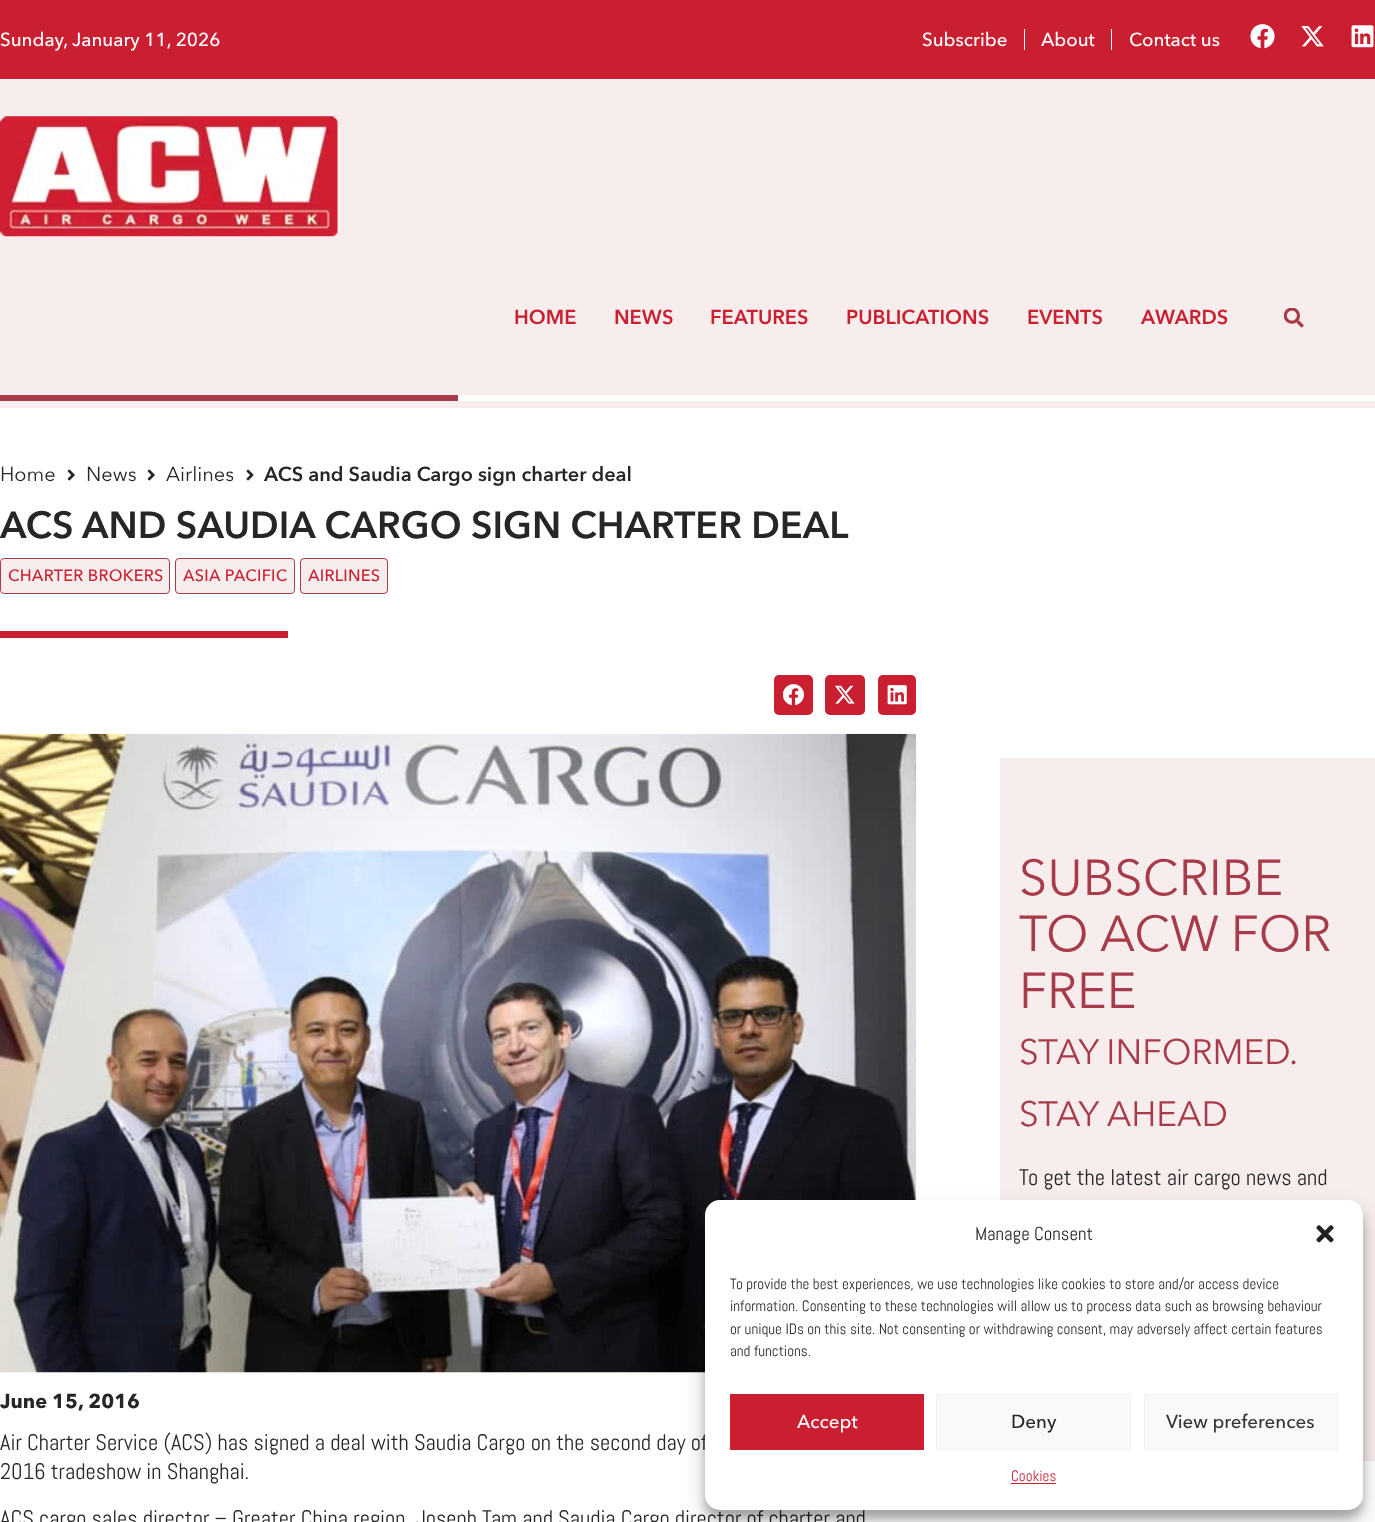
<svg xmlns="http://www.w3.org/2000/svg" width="1375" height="1522">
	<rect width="100%" height="100%" fill="#FFFFFF" />
	<rect x="0" y="0" width="1375" height="79" fill="#CA1F31" />
	<g font-family="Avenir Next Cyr" font-size="18.75" font-weight="500" fill="#FFFFFF">
		<text x="0" y="46">Sunday, January 11, 2026</text>
		<text x="922" y="46">Subscribe</text>
	</g>
	<rect x="1024" y="29" width="1" height="21" fill="#FFFFFF" />
	<text x="1041" y="46" font-family="Avenir Next Cyr" font-size="18.75" font-weight="500" fill="#FFFFFF">About</text>
	<rect x="1111" y="29" width="1" height="21" fill="#FFFFFF" />
	<text x="1129" y="46" font-family="Avenir Next Cyr" font-size="18.75" font-weight="500" fill="#FFFFFF">Contact us</text>
	<image x="1250" y="24" width="25" height="25" href="assets/img1.png" />
	<image x="1301" y="26" width="23" height="21" href="assets/img2.png" />
	<image x="1351" y="25" width="23" height="23" href="assets/img3.png" />
	<rect x="0" y="79" width="1375" height="329" fill="#F7EDED" />
	<image x="0" y="116" width="338" height="121" href="assets/img4.png" />
	<g font-family="Avenir Next Cyr" font-size="20" font-weight="700" fill="#CA1F31">
		<text x="514" y="324">HOME</text>
		<text x="614" y="324">NEWS</text>
		<text x="710" y="324">FEATURES</text>
		<text x="846" y="324">PUBLICATIONS</text>
		<text x="1027" y="324">EVENTS</text>
		<text x="1141" y="324">AWARDS</text>
	</g>
	<image x="1284" y="308" width="20" height="20" href="assets/img5.png" />
	<rect x="458" y="395" width="917" height="6" fill="#FFFFFF" />
	<rect x="0" y="395" width="458" height="6" fill="#A73A4B" />
	<text x="0" y="481" font-family="Avenir Next Cyr" font-size="20" fill="#262626">Home</text>
	<image x="67" y="469" width="8" height="12" href="assets/img6.png" />
	<text x="86" y="481" font-family="Avenir Next Cyr" font-size="20" fill="#262626">News</text>
	<image x="147" y="469" width="8" height="12" href="assets/img6.png" />
	<text x="166" y="481" font-family="Avenir Next Cyr" font-size="20" fill="#262626">Airlines</text>
	<image x="246" y="469" width="8" height="12" href="assets/img7.png" />
	<text x="264" y="481" font-family="Avenir Next Cyr" font-size="20" font-weight="700" fill="#262626">ACS and Saudia Cargo sign charter deal</text>
	<text x="0" y="538" font-family="Avenir Next Cyr" font-size="37.5" font-weight="700" fill="#262626">ACS AND SAUDIA CARGO SIGN CHARTER DEAL</text>
	<rect x="0.5" y="558.5" width="169" height="35" rx="3.5" fill="#F7EDED" stroke="#A73A4B" />
	<text x="8" y="581" font-family="Avenir Next Cyr" font-size="16.25" font-weight="500" letter-spacing="0.25" fill="#CA1F31">CHARTER BROKERS</text>
	<rect x="175.5" y="558.5" width="119" height="35" rx="3.5" fill="#F7EDED" stroke="#A73A4B" />
	<text x="183" y="581" font-family="Avenir Next Cyr" font-size="16.25" font-weight="500" letter-spacing="0.25" fill="#CA1F31">ASIA PACIFIC</text>
	<rect x="300.5" y="558.5" width="87" height="35" rx="3.5" fill="#F7EDED" stroke="#A73A4B" />
	<text x="308" y="581" font-family="Avenir Next Cyr" font-size="16.25" font-weight="500" letter-spacing="0.25" fill="#CA1F31">AIRLINES</text>
	<rect x="0" y="631" width="288" height="7" fill="#CA1F31" />
	<rect x="774" y="675" width="39" height="40" rx="5" fill="#CA1F31" />
	<image x="783" y="684" width="21" height="22" href="assets/img8.png" />
	<rect x="825" y="675" width="40" height="40" rx="5" fill="#CA1F31" />
	<image x="835" y="685" width="20" height="19" href="assets/img9.png" />
	<rect x="878" y="675" width="38" height="40" rx="5" fill="#CA1F31" />
	<image x="887" y="685" width="20" height="20" href="assets/img10.png" />
	<image x="0" y="733" width="917" height="640" href="assets/img11.png" />
	<text x="0" y="1408" font-family="'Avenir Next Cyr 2'" font-size="20" font-weight="700" fill="#262626">June 15, 2016</text>
	<g font-family="Abel" font-size="22.5" fill="#262626">
		<text x="0" y="1450">Air Charter Service (ACS) has signed a deal with Saudia Cargo on the second day of</text>
		<text x="0" y="1479">2016 tradeshow in Shanghai.</text>
		<text x="0" y="1526">ACS cargo sales director – Greater China region, Joseph Tam and Saudia Cargo director of charter and</text>
	</g>
	<rect x="1000" y="758" width="375" height="703" fill="#F7EDED" />
	<g font-family="Avenir Next Cyr" font-size="50" fill="#A73A4B">
		<text x="1019" y="895">SUBSCRIBE</text>
		<text x="1019" y="951">TO ACW FOR</text>
		<text x="1019" y="1008">FREE</text>
	</g>
	<g font-family="Avenir Next Cyr" font-size="35" fill="#A73A4B">
		<text x="1019" y="1064" word-spacing="-1">STAY INFORMED.</text>
		<text x="1019" y="1126">STAY AHEAD</text>
	</g>
	<text x="1019" y="1185" font-family="Abel" font-size="22.5" fill="#262626">To get the latest air cargo news and</text>
	<rect x="705" y="1208" width="658" height="310" rx="15" fill="#000000" fill-opacity="0.23" filter="blur(4px)" />
	<rect x="705" y="1213" width="658" height="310" rx="15" fill="#000000" fill-opacity="0.19" filter="blur(12.5px)" />
	<rect x="705" y="1200" width="658" height="310" rx="15" fill="#FFFFFF" />
	<text x="975" y="1240" font-family="Abel" font-size="18.75" fill="#262626">Manage Consent</text>
	<image x="1316" y="1225" width="18" height="18" href="assets/img12.png" />
	<g font-family="Abel" font-size="15" fill="#262626">
		<text x="730" y="1289">To provide the best experiences, we use technologies like cookies to store and/or access device</text>
		<text x="730" y="1311">information. Consenting to these technologies will allow us to process data such as browsing behaviour</text>
		<text x="730" y="1334">or unique IDs on this site. Not consenting or withdrawing consent, may adversely affect certain features</text>
		<text x="730" y="1356">and functions.</text>
	</g>
	<rect x="730" y="1394" width="194" height="56" fill="#CA1F31" />
	<text x="797" y="1428" font-family="Avenir Next Cyr" font-size="18.75" font-weight="500" fill="#FFFFFF">Accept</text>
	<rect x="936.5" y="1394.5" width="194" height="55" fill="#F9F9F9" stroke="#F2F2F2" />
	<text x="1011" y="1428" font-family="Avenir Next Cyr" font-size="18.75" font-weight="500" fill="#262626">Deny</text>
	<rect x="1144.5" y="1394.5" width="193" height="55" fill="#F9F9F9" stroke="#F2F2F2" />
	<text x="1166" y="1428" font-family="Avenir Next Cyr" font-size="18.75" font-weight="500" fill="#333333">View preferences</text>
	<text x="1011" y="1481" font-family="Abel" font-size="15" fill="#CA1F31">Cookies</text>
	<rect x="1011" y="1483" width="45" height="1" fill="#CA1F31" />
</svg>
